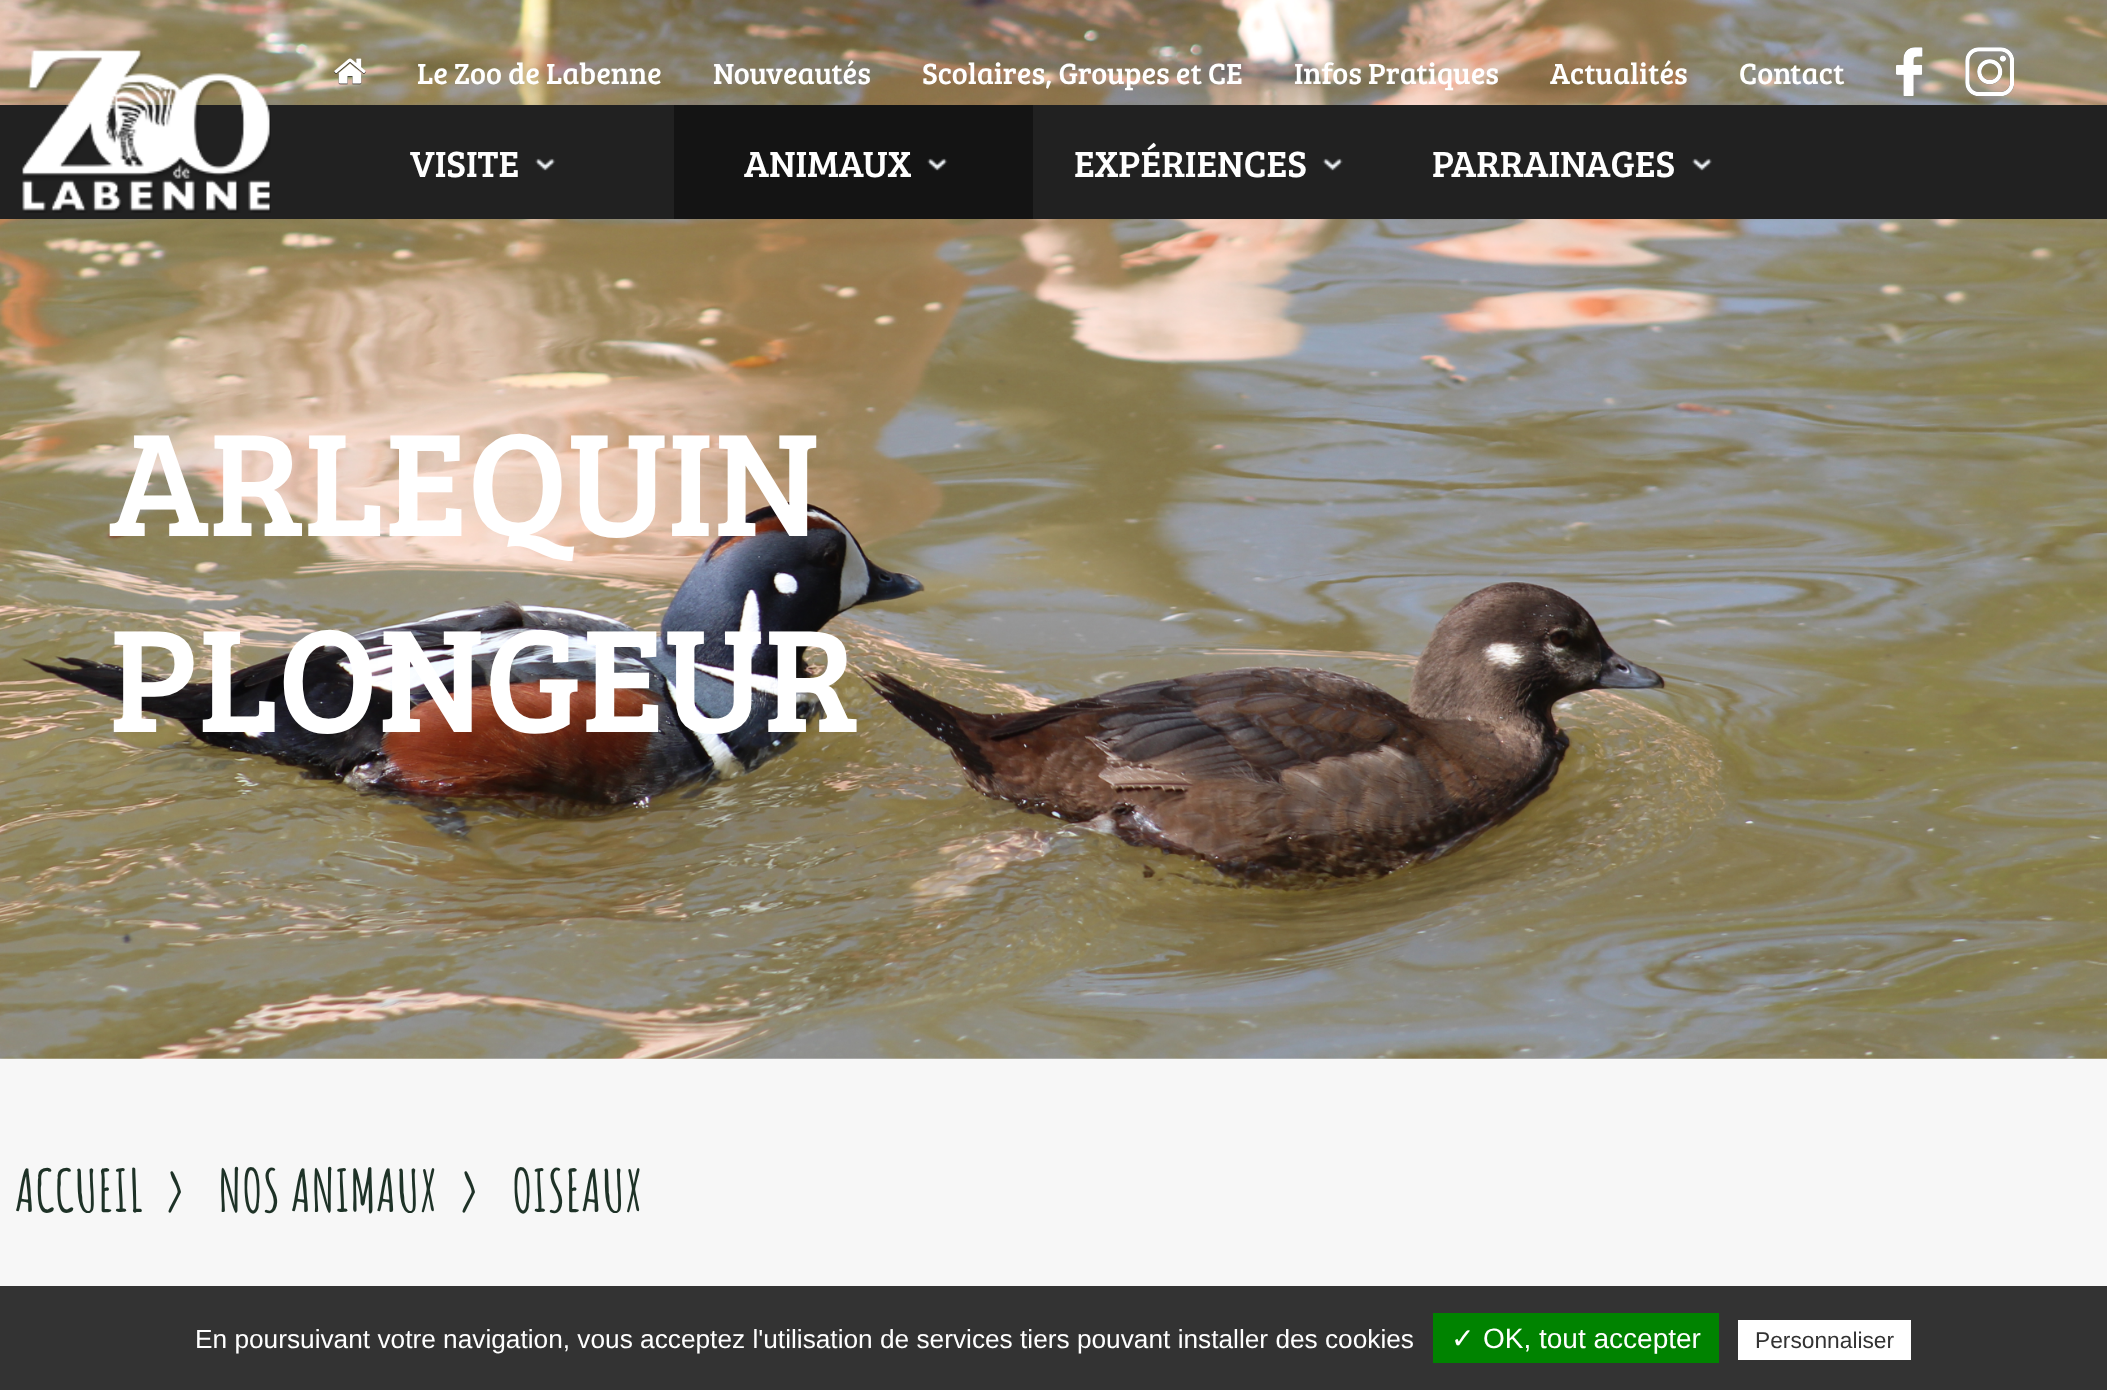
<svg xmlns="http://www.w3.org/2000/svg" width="2107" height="1390">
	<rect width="100%" height="100%" fill="#F7F7F7" />
	<image x="0" y="0" width="2107" height="1059" href="assets/img12.png" />
	<image x="334" y="59" width="32" height="26" href="assets/img2.png" />
	<image x="334" y="58" width="32" height="26" href="assets/img1.png" />
	<g font-family="Bree Serif" font-size="30.25" fill="#FFFFFF">
		<text x="417" y="84">Le Zoo de Labenne</text>
		<text x="713" y="84">Nouveautés</text>
		<text x="922" y="84">Scolaires, Groupes et CE</text>
		<text x="1294" y="84">Infos Pratiques</text>
		<text x="1550" y="84">Actualités</text>
		<text x="1739" y="84">Contact</text>
	</g>
	<image x="1896" y="47" width="27" height="49" href="assets/img3.png" />
	<image x="1896" y="47" width="27" height="49" href="assets/img4.png" />
	<image x="1965" y="47" width="49" height="49" href="assets/img5.png" />
	<image x="1965" y="47" width="49" height="49" href="assets/img6.png" />
	<rect x="0" y="105" width="2107" height="114" fill="#212121" />
	<image x="22" y="50" width="249" height="163" href="assets/img7.png" />
	<text x="410" y="177" font-family="Bree Serif" font-size="37.75" fill="#FFFFFF">VISITE</text>
	<image x="535" y="158" width="21" height="13" href="assets/img8.png" />
	<rect x="674" y="105" width="359" height="114" fill="#141414" />
	<text x="744" y="177" font-family="Bree Serif" font-size="37.75" fill="#FFFFFF">ANIMAUX</text>
	<image x="927" y="158" width="21" height="13" href="assets/img9.png" />
	<text x="1074" y="177" font-family="Bree Serif" font-size="37.75" fill="#FFFFFF">EXPÉRIENCES</text>
	<image x="1322" y="158" width="21" height="13" href="assets/img10.png" />
	<text x="1432" y="177" font-family="Bree Serif" font-size="37.75" fill="#FFFFFF">PARRAINAGES</text>
	<image x="1692" y="158" width="20" height="13" href="assets/img11.png" />
	<g font-family="Bree Serif" font-size="151" fill="#FFFFFF">
		<text x="109" y="536">ARLEQUIN</text>
		<text x="109" y="732">PLONGEUR</text>
	</g>
	<g font-family="Amatic SC" font-size="58" font-weight="700" fill="#1E3227">
		<text x="15" y="1212">ACCUEIL</text>
		<text x="164" y="1212">&gt;</text>
		<text x="218" y="1212">NOS ANIMAUX</text>
		<text x="458" y="1212">&gt;</text>
		<text x="512" y="1212">OISEAUX</text>
	</g>
	<rect x="0" y="1286" width="2107" height="104" fill="#333333" />
	<text x="195" y="1348" font-family="Liberation Sans" font-size="26.25" fill="#FFFFFF">En poursuivant votre navigation, vous acceptez l'utilisation de services tiers pouvant installer des cookies</text>
	<rect x="1433" y="1313" width="286" height="50" fill="#008300" />
	<text x="1451" y="1348" font-family="DejaVu Sans" font-size="28" fill="#FFFFFF">✓</text>
	<text x="1483" y="1348" font-family="Liberation Sans" font-size="28" fill="#FFFFFF">OK, tout accepter</text>
	<rect x="1738" y="1320" width="173" height="40" fill="#FFFFFF" />
	<text x="1755" y="1348" font-family="Liberation Sans" font-size="22.75" fill="#333333">Personnaliser</text>
</svg>
